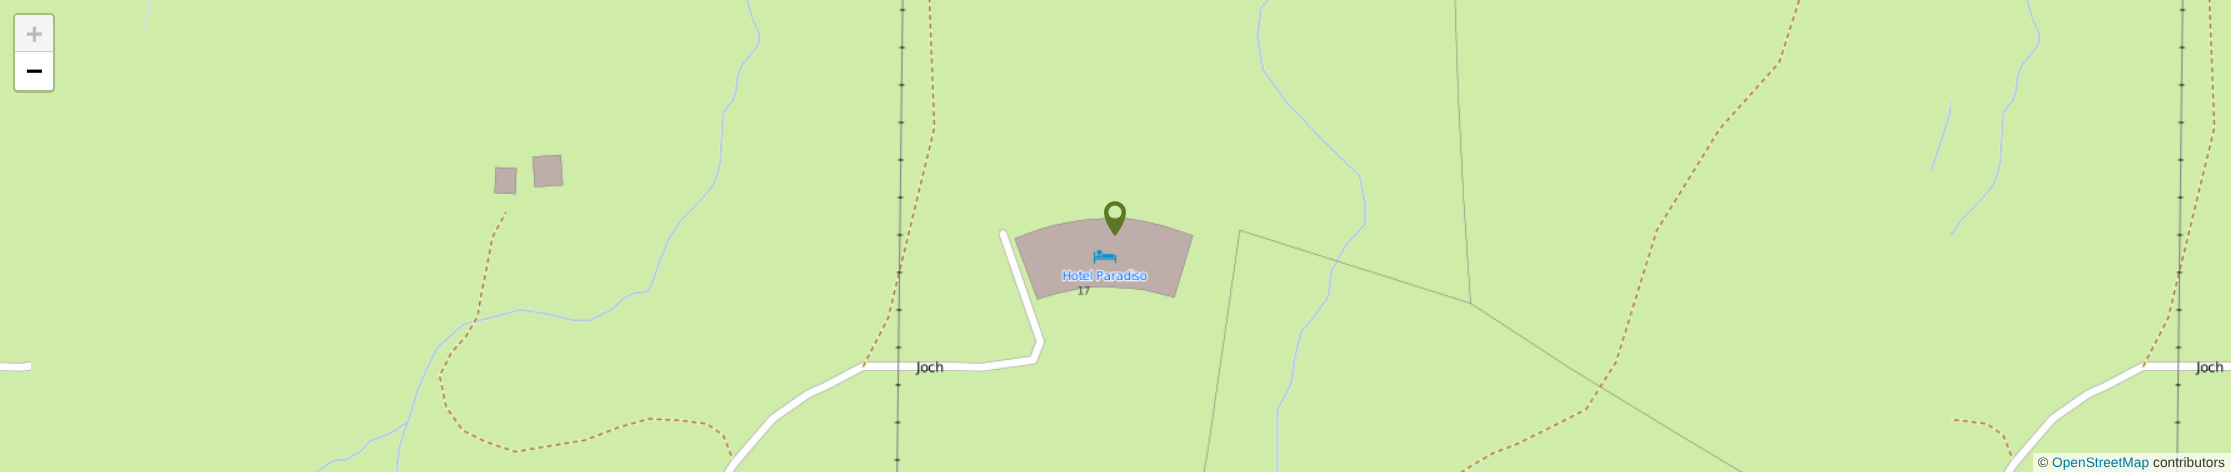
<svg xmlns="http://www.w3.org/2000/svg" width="2231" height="472">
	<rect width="100%" height="100%" fill="#DDDDDD" />
	<rect x="0" y="0" width="31" height="51" fill="#CFECA8" />
	<image x="31" y="0" width="320" height="51" href="assets/img1.png" />
	<rect x="351" y="0" width="320" height="51" fill="#CFECA8" />
	<image x="671" y="0" width="320" height="51" href="assets/img2.png" />
	<image x="991" y="0" width="320" height="51" href="assets/img3.png" />
	<image x="1311" y="0" width="320" height="51" href="assets/img4.png" />
	<image x="1631" y="0" width="320" height="51" href="assets/img5.png" />
	<image x="1951" y="0" width="280" height="51" href="assets/img6.png" />
	<image x="0" y="51" width="31" height="320" href="assets/img7.png" />
	<rect x="31" y="51" width="320" height="321" fill="#CFECA8" />
	<image x="671" y="51" width="321" height="320" href="assets/img9.png" />
	<image x="671" y="371" width="320" height="101" href="assets/img17.png" />
	<image x="351" y="51" width="321" height="321" href="assets/img8.png" />
	<image x="991" y="51" width="321" height="320" href="assets/img10.png" />
	<image x="1311" y="51" width="321" height="320" href="assets/img11.png" />
	<image x="1631" y="51" width="320" height="320" href="assets/img12.png" />
	<image x="1951" y="51" width="280" height="320" href="assets/img13.png" />
	<image x="0" y="371" width="31" height="101" href="assets/img14.png" />
	<image x="31" y="372" width="320" height="100" href="assets/img15.png" />
	<image x="351" y="371" width="320" height="101" href="assets/img16.png" />
	<image x="991" y="371" width="320" height="101" href="assets/img18.png" />
	<image x="1311" y="371" width="320" height="101" href="assets/img19.png" />
	<image x="1631" y="371" width="320" height="101" href="assets/img20.png" />
	<image x="1951" y="371" width="280" height="101" href="assets/img21.png" />
	<image x="1104" y="201" width="22" height="35" href="assets/img22.png" />
	<rect x="14.5" y="14.5" width="39" height="77" rx="3.5" fill="none" stroke="#A6BD86" stroke-width="3" />
	<path d="M17.5 15H50.5C52 15 53 16 53 17.5V53H15V17.5C15 16 16 15 17.5 15Z" fill="#F4F4F4" />
	<rect x="15" y="51" width="38" height="1" fill="#CCCCCC" />
	<text x="26" y="43" font-family="DejaVu Sans Mono" font-size="28" font-weight="700" fill="#BBBBBB">+</text>
	<path d="M15 53H53V87.5C53 89 52 90 50.5 90H17.5C16 90 15 89 15 87.5Z" fill="#FFFFFF" />
	<text x="26" y="80" font-family="DejaVu Sans Mono" font-size="28" font-weight="700" fill="#000000">−</text>
	<rect x="2033" y="453" width="198" height="19" fill="#FFFFFF" fill-opacity="0.7" />
	<text x="2038" y="467" font-family="Liberation Sans" font-size="13.75" fill="#333333">©</text>
	<text x="2052" y="467" font-family="Liberation Sans" font-size="13.75" fill="#0078A8">OpenStreetMap</text>
	<text x="2153" y="467" font-family="Liberation Sans" font-size="13.75" fill="#333333">contributors</text>
</svg>
